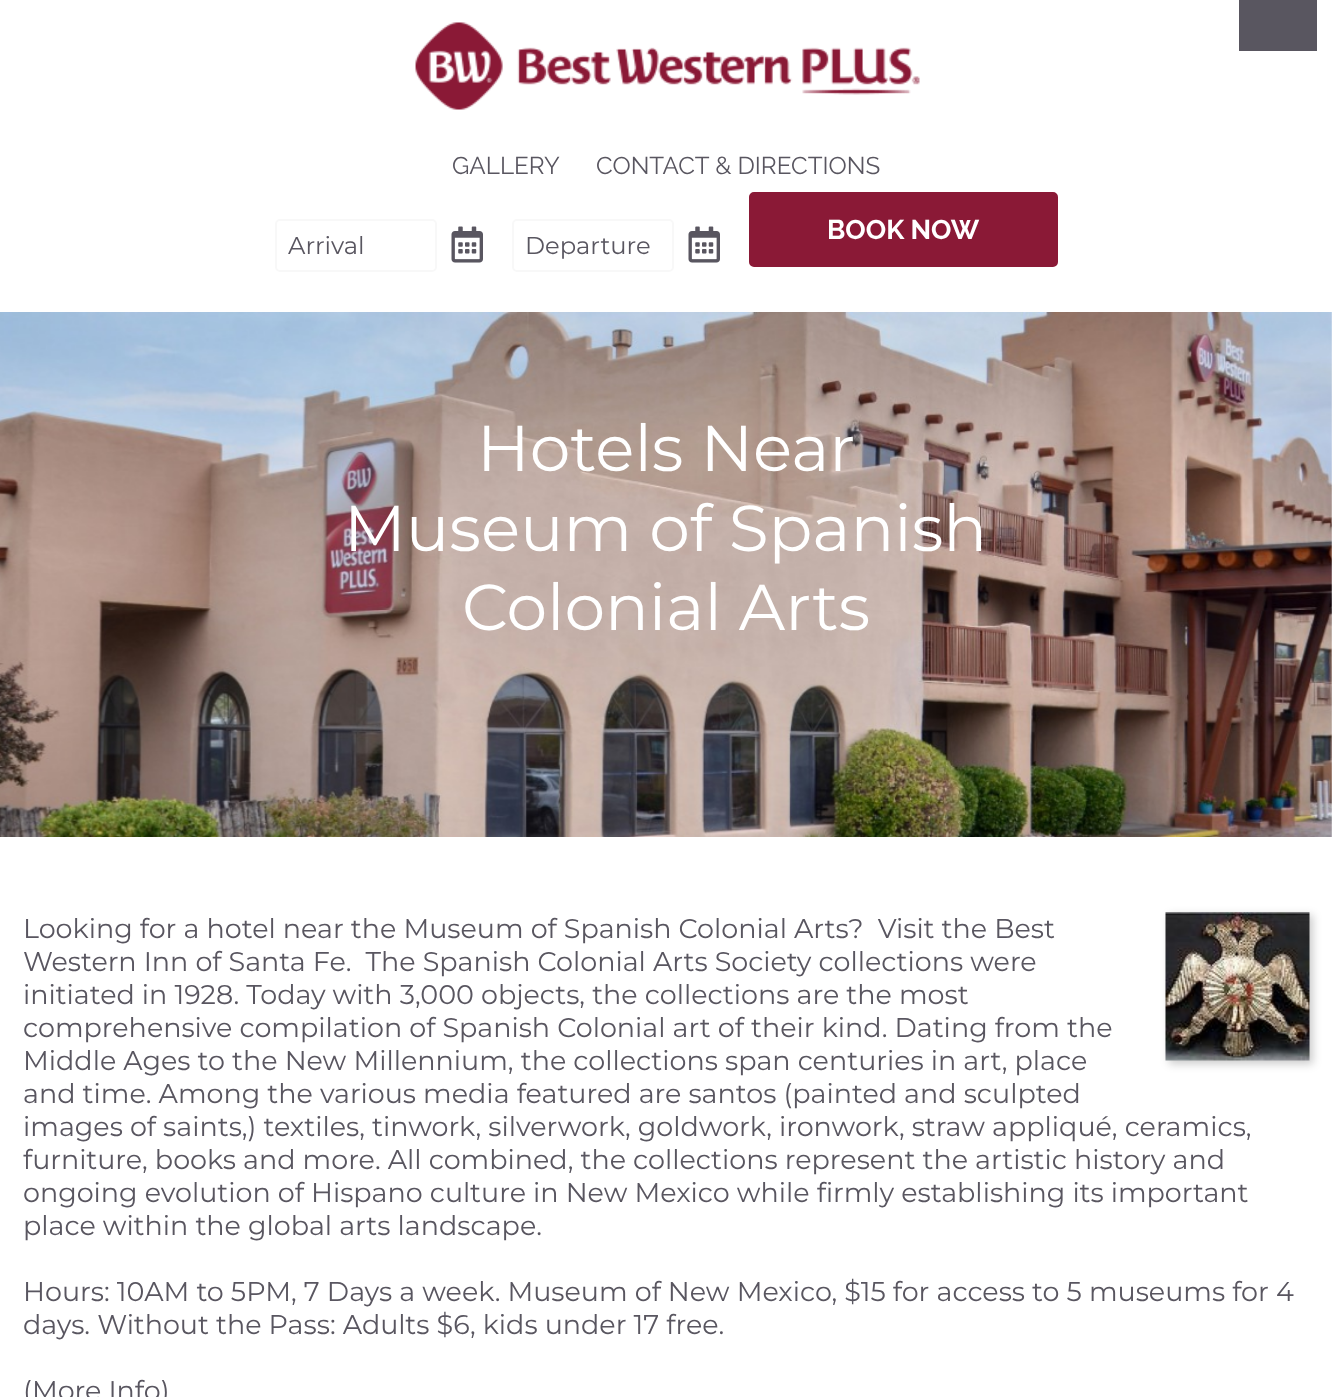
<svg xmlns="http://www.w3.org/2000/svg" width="1332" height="1397">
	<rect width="100%" height="100%" fill="#FFFFFF" />
	<rect x="1239" y="0" width="78" height="51" fill="#595660" />
	<image x="415" y="22" width="505" height="88" href="assets/img1.png" />
	<g font-family="Raleway" font-size="24.25" fill="#595660">
		<text x="452" y="174">GALLERY</text>
		<text x="596" y="174">CONTACT &amp; DIRECTIONS</text>
	</g>
	<rect x="750.5" y="193.5" width="306" height="72" rx="3.5" fill="#8A1936" stroke="#8A1936" stroke-width="3" />
	<text x="827" y="239" font-family="Raleway" font-size="27" font-weight="700" fill="#FFFFFF">BOOK NOW</text>
	<rect x="276" y="220" width="160" height="51" rx="4" fill="none" stroke="#F8F8F8" stroke-width="2" />
	<text x="288" y="254" font-family="Montserrat" font-size="24.25" fill="#595660">Arrival</text>
	<image x="451" y="226" width="32" height="37" href="assets/img2.png" />
	<rect x="513" y="220" width="160" height="51" rx="4" fill="none" stroke="#F8F8F8" stroke-width="2" />
	<text x="525" y="254" font-family="Montserrat" font-size="24.25" fill="#595660">Departure</text>
	<image x="688" y="226" width="32" height="37" href="assets/img2.png" />
	<image x="0" y="312" width="1332" height="525" href="assets/img3.png" />
	<g font-family="Montserrat" font-size="64.75" fill="#FFFFFF">
		<text x="477" y="471">Hotels Near</text>
		<text x="344" y="551">Museum of Spanish</text>
		<text x="462" y="630">Colonial Arts</text>
	</g>
	<rect x="1169" y="915" width="144" height="149" fill="#000000" fill-opacity="0.2" filter="blur(4px)" />
	<image x="1165" y="912" width="145" height="149" href="assets/img4.png" />
	<g font-family="Montserrat" font-size="27" fill="#595660">
		<text x="23" y="938" xml:space="preserve">Looking for a hotel near the Museum of Spanish Colonial Arts?  Visit the Best</text>
		<text x="23" y="971" xml:space="preserve">Western Inn of Santa Fe.  The Spanish Colonial Arts Society collections were</text>
		<text x="23" y="1004">initiated in 1928. Today with 3,000 objects, the collections are the most</text>
		<text x="23" y="1037">comprehensive compilation of Spanish Colonial art of their kind. Dating from the</text>
		<text x="23" y="1070">Middle Ages to the New Millennium, the collections span centuries in art, place</text>
		<text x="23" y="1103">and time. Among the various media featured are santos (painted and sculpted</text>
		<text x="23" y="1136">images of saints,) textiles, tinwork, silverwork, goldwork, ironwork, straw appliqué, ceramics,</text>
		<text x="23" y="1169">furniture, books and more. All combined, the collections represent the artistic history and</text>
		<text x="23" y="1202">ongoing evolution of Hispano culture in New Mexico while firmly establishing its important</text>
		<text x="23" y="1235">place within the global arts landscape.</text>
		<text x="23" y="1301">Hours: 10AM to 5PM, 7 Days a week. Museum of New Mexico, $15 for access to 5 museums for 4</text>
		<text x="23" y="1334">days. Without the Pass: Adults $6, kids under 17 free.</text>
		<text x="23" y="1400">(More Info)</text>
	</g>
</svg>
